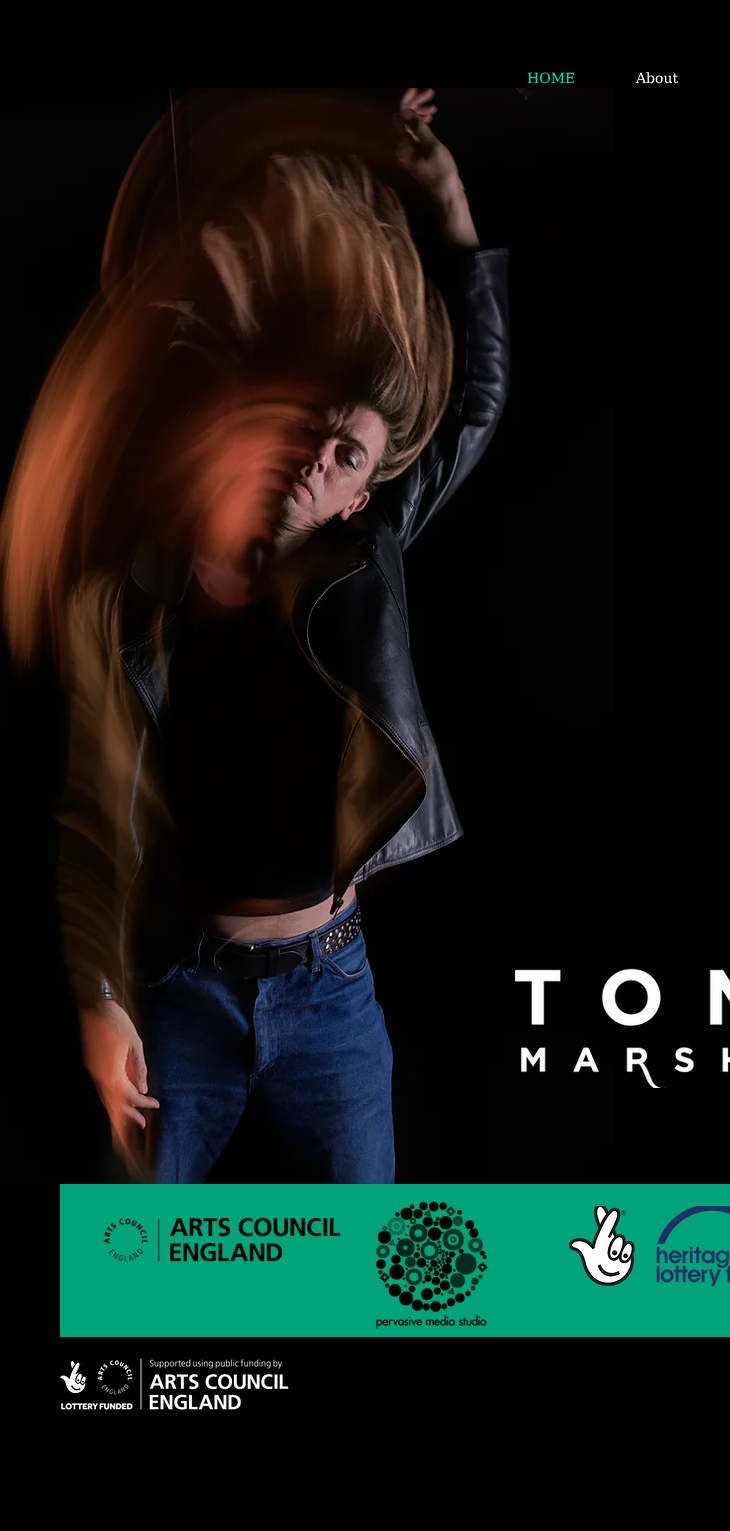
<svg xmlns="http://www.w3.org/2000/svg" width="730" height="1531">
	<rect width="100%" height="100%" fill="#000000" />
	<text x="527" y="83" font-family="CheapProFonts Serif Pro" font-size="14" fill="#00E3AA">HOME</text>
	<text x="636" y="83" font-family="CheapProFonts Serif Pro" font-size="14" fill="#FFFFFF">About</text>
	<image x="0" y="88" width="614" height="1096" href="assets/img1.png" />
	<image x="515" y="968" width="215" height="120" href="assets/img2.png" />
	<rect x="60" y="1184" width="670" height="153" fill="#00A37A" />
	<image x="103" y="1217" width="238" height="45" href="assets/img3.png" />
	<image x="374" y="1201" width="116" height="128" href="assets/img4.png" />
	<image x="569" y="1206" width="161" height="81" href="assets/img5.png" />
	<image x="59" y="1358" width="230" height="52" href="assets/img6.png" />
</svg>
